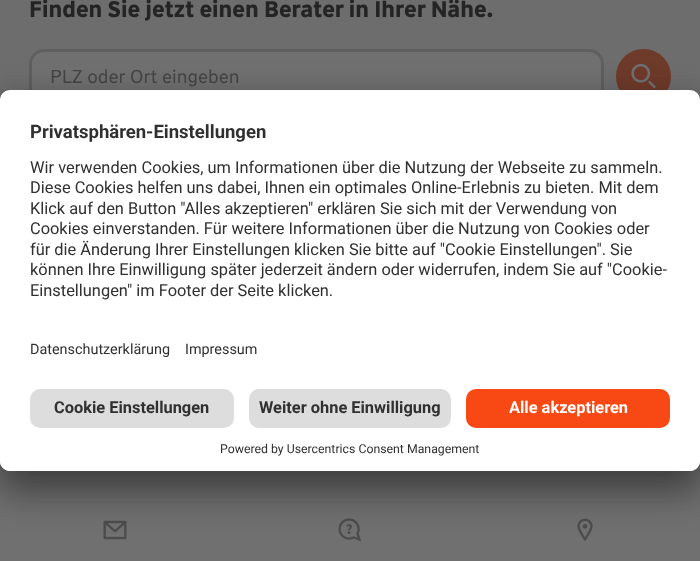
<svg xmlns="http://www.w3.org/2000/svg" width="700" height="561">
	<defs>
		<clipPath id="clip1"><rect x="0" y="90" width="700" height="381" rx="10" /></clipPath>
		<clipPath id="clip2"><path d="M10 90H690C695.5 90 700 94.5 700 100V379H0V100C0 94.5 4.5 90 10 90Z" /></clipPath>
	</defs>
	<rect width="100%" height="100%" fill="#707070" />
	<rect x="0" y="0" width="700" height="100" fill="#6D6D6D" />
	<text x="29" y="17" font-family="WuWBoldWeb" font-size="22.5" font-weight="700" fill="#242424">Finden Sie jetzt einen Berater in Ihrer Nähe.</text>
	<rect x="30.5" y="50.5" width="572" height="52" rx="13.5" fill="#707070" stroke="#5F5F5F" stroke-width="3" />
	<text x="50" y="83" font-family="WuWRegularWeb" font-size="18.75" fill="#444444">PLZ oder Ort eingeben</text>
	<circle cx="643.5" cy="76.5" r="26" fill="#6E3A2A" stroke="#6E3A2A" stroke-width="3" />
	<image x="631" y="63" width="25" height="26" href="assets/img1.png" />
	<rect x="29" y="473" width="642" height="3" fill="#6D6D6D" />
	<image x="103" y="520" width="24" height="20" href="assets/img2.png" />
	<image x="338" y="518" width="24" height="24" href="assets/img3.png" />
	<image x="577" y="518" width="16" height="24" href="assets/img4.png" />
	<rect x="0" y="115" width="700" height="381" rx="10" fill="#000000" fill-opacity="0.3" filter="blur(17.5px)" />
	<rect x="0" y="96" width="700" height="382" rx="10" fill="#000000" fill-opacity="0.22" filter="blur(16px)" />
	<rect x="0" y="90" width="700" height="381" rx="10" fill="#FFFFFF" />
	<g clip-path="url(#clip1)">
		<g clip-path="url(#clip2)">
			<rect x="0" y="91" width="700" height="288" fill="#FFFFFF" />
		</g>
	</g>
	<text x="30" y="138" font-family="Roboto" font-size="18.5" font-weight="700" fill="#303030">Privatsphären-Einstellungen</text>
	<g font-family="Roboto" font-size="16.4" fill="#303030">
		<text x="30" y="173">Wir verwenden Cookies, um Informationen über die Nutzung der Webseite zu sammeln.</text>
		<text x="30" y="193">Diese Cookies helfen uns dabei, Ihnen ein optimales Online-Erlebnis zu bieten. Mit dem</text>
		<text x="30" y="214">Klick auf den Button "Alles akzeptieren" erklären Sie sich mit der Verwendung von</text>
		<text x="30" y="234">Cookies einverstanden. Für weitere Informationen über die Nutzung von Cookies oder</text>
		<text x="30" y="255">für die Änderung Ihrer Einstellungen klicken Sie bitte auf "Cookie Einstellungen". Sie</text>
		<text x="30" y="275">können Ihre Einwilligung später jederzeit ändern oder widerrufen, indem Sie auf "Cookie-</text>
		<text x="30" y="296">Einstellungen" im Footer der Seite klicken.</text>
	</g>
	<g font-family="Roboto" font-size="14.4" fill="#303030">
		<text x="30" y="354">Datenschutzerklärung</text>
		<text x="185" y="354">Impressum</text>
	</g>
	<path d="M0 379H700V461C700 466.5 695.5 471 690 471H10C4.5 471 0 466.5 0 461Z" fill="#FFFFFF" />
	<rect x="30" y="389" width="204" height="39" rx="10" fill="#DDDDDD" />
	<text x="54" y="413" font-family="Roboto" font-size="16.4" font-weight="700" fill="#303030">Cookie Einstellungen</text>
	<rect x="249" y="389" width="202" height="39" rx="10" fill="#DDDDDD" />
	<text x="259" y="413" font-family="Roboto" font-size="16.4" font-weight="700" fill="#303030">Weiter ohne Einwilligung</text>
	<rect x="466" y="389" width="204" height="39" rx="10" fill="#F84914" />
	<text x="509" y="413" font-family="Roboto" font-size="16.4" font-weight="700" fill="#FFFFFF">Alle akzeptieren</text>
	<text x="220" y="453" font-family="Roboto" font-size="12.3" fill="#303030">Powered by Usercentrics Consent Management</text>
</svg>
